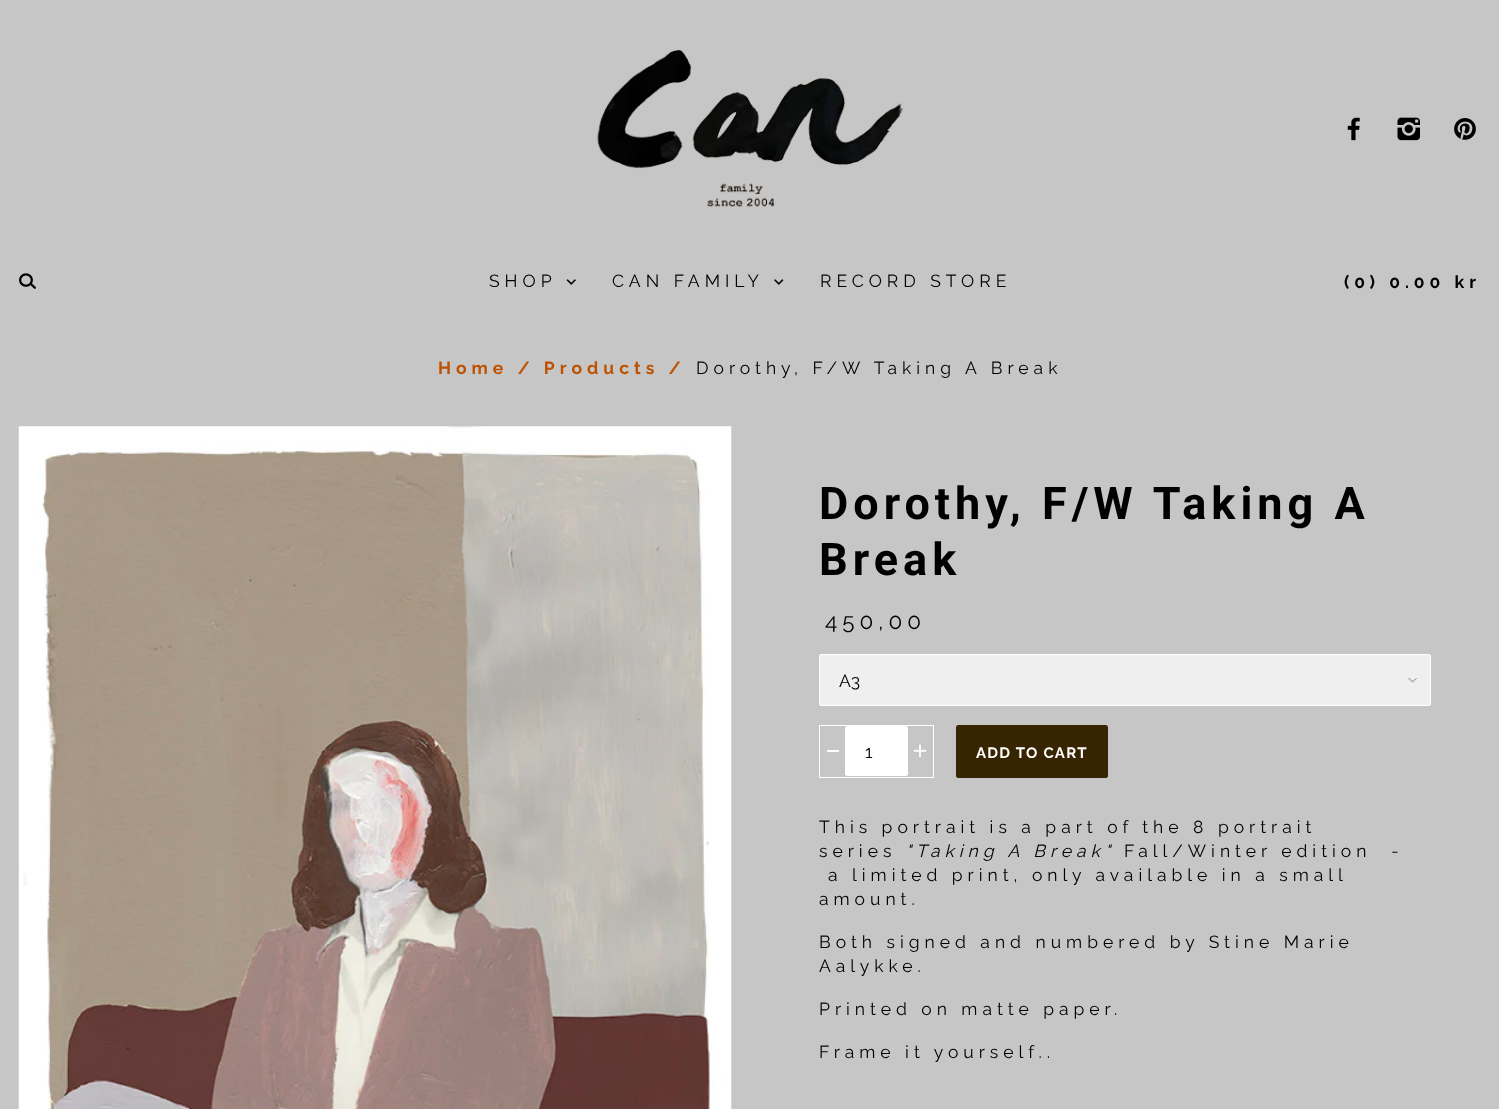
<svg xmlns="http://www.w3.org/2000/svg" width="1499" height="1109">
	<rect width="100%" height="100%" fill="#C6C6C6" />
	<image x="597" y="50" width="306" height="157" href="assets/img1.png" />
	<image x="1347" y="117" width="13" height="24" href="assets/img2.png" />
	<image x="1397" y="117" width="23" height="24" href="assets/img3.png" />
	<image x="1454" y="118" width="22" height="22" href="assets/img4.png" />
	<image x="19" y="273" width="17" height="16" href="assets/img5.png" />
	<text x="489" y="287" font-family="Raleway" font-size="17.5" letter-spacing="5" fill="#000000">SHOP</text>
	<image x="566" y="279" width="10" height="6" href="assets/img6.png" />
	<text x="612" y="287" font-family="Raleway" font-size="17.5" letter-spacing="5" fill="#000000">CAN FAMILY</text>
	<image x="774" y="279" width="10" height="6" href="assets/img7.png" />
	<text x="820" y="287" font-family="Raleway" font-size="17.5" letter-spacing="5" fill="#000000">RECORD STORE</text>
	<text x="1344" y="288" font-family="Raleway" font-size="17.5" font-weight="700" letter-spacing="5" fill="#000000">(0) 0.00 kr</text>
	<text x="438" y="374" font-family="Raleway" font-size="17.5" font-weight="700" letter-spacing="5" fill="#BD5100">Home / Products /</text>
	<text x="696" y="374" font-family="Raleway" font-size="17.5" letter-spacing="5" fill="#000000">Dorothy, F/W Taking A Break</text>
	<image x="18" y="426" width="714" height="683" href="assets/img8.png" />
	<g font-family="Roboto" font-size="45" font-weight="700" letter-spacing="5" fill="#000000">
		<text x="819" y="519">Dorothy, F/W Taking A</text>
		<text x="819" y="575">Break</text>
	</g>
	<text x="825" y="629" font-family="Raleway" font-size="22.5" letter-spacing="5" fill="#000000">450,00</text>
	<rect x="819" y="654" width="612" height="52" rx="2.5" fill="#EFEFEF" />
	<image x="1408" y="678" width="9" height="5" href="assets/img9.png" />
	<rect x="819.5" y="654.5" width="611" height="51" rx="2" fill="none" stroke="#FFFFFF" />
	<text x="839" y="687" font-family="Raleway" font-size="17.5" fill="#000000">A3</text>
	<rect x="819.5" y="725.5" width="114" height="52" fill="none" stroke="#FFFFFF" />
	<rect x="827" y="750" width="12" height="2" fill="#FFFFFF" />
	<rect x="845" y="726" width="63" height="50" rx="2.5" fill="#FFFFFF" />
	<rect x="845" y="774" width="1" height="1" fill="#FFFFFF" />
	<text x="865" y="758" font-family="Raleway" font-size="17.5" fill="#000000">1</text>
	<image x="913" y="744" width="14" height="13" href="assets/img10.png" />
	<rect x="956" y="725" width="152" height="53" rx="2.5" fill="#372502" />
	<text x="976" y="758" font-family="Raleway" font-size="15" font-weight="700" letter-spacing="1.25" fill="#FFFDFD">ADD TO CART</text>
	<g font-family="Raleway" font-size="17.5" letter-spacing="5" fill="#000000">
		<text x="819" y="833">This portrait is a part of the 8 portrait</text>
		<text x="819" y="857">series</text>
	</g>
	<text x="906" y="857" font-family="Raleway" font-size="17.5" font-style="italic" letter-spacing="5" fill="#000000">"Taking A Break"</text>
	<text x="1124" y="857" font-family="Raleway" font-size="17.5" letter-spacing="5" fill="#000000">Fall/Winter edition</text>
	<text x="1390" y="857" font-family="Raleway" font-size="17.5" font-style="italic" letter-spacing="5" fill="#000000">-</text>
	<g font-family="Raleway" font-size="17.5" letter-spacing="5" fill="#000000">
		<text x="828" y="881">a limited print, only available in a small</text>
		<text x="819" y="905">amount.</text>
		<text x="819" y="948">Both signed and numbered by Stine Marie</text>
		<text x="819" y="972">Aalykke.</text>
		<text x="819" y="1015">Printed on matte paper.</text>
		<text x="819" y="1058">Frame it yourself..</text>
	</g>
</svg>
